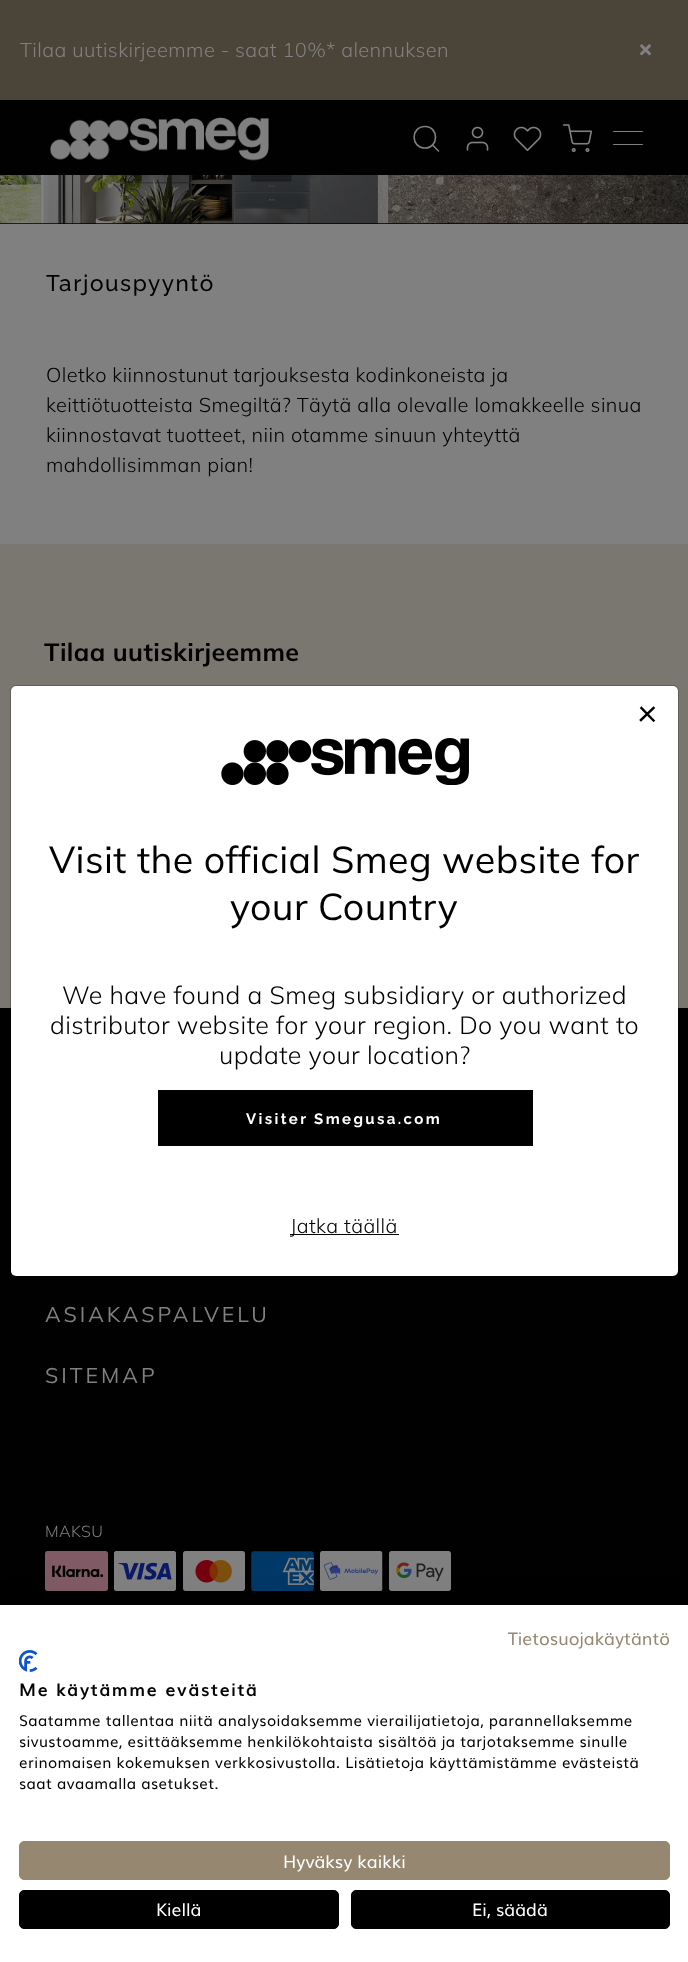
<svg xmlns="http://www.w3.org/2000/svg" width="688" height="1962">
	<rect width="100%" height="100%" fill="#808080" />
	<rect x="0" y="0" width="688" height="100" fill="#4B4438" />
	<text x="20" y="57" font-family="Mulish" font-size="20" font-weight="300" letter-spacing="0.4" fill="#808080">Tilaa uutiskirjeemme - saat 10%* alennuksen</text>
	<image x="640" y="44" width="11" height="12" href="assets/img1.png" />
	<rect x="0" y="100" width="688" height="75" fill="#010101" />
	<image x="49" y="117" width="220" height="44" href="assets/img2.png" />
	<path d="M425 148C439 148 439 126.5 425 126.5C410.5 126.5 410.5 148 425 148ZM438.5 151L432.5 145" fill="none" stroke="#808080" stroke-width="1.6" stroke-linecap="round" stroke-linejoin="round" />
	<image x="466" y="126" width="23" height="25" href="assets/img3.png" />
	<image x="513" y="126" width="29" height="26" href="assets/img4.png" />
	<image x="563" y="124" width="29" height="28" href="assets/img5.png" />
	<rect x="613" y="131" width="30" height="1" rx="0.5" fill="#808080" />
	<rect x="613" y="144" width="30" height="1" rx="0.5" fill="#808080" />
	<rect x="0" y="223" width="688" height="1" fill="#010101" />
	<image x="0" y="175" width="688" height="49" href="assets/img6.png" />
	<text x="46" y="291" font-family="Raleway" font-size="22.5" font-weight="500" letter-spacing="1.6" fill="#010101">Tarjouspyyntö</text>
	<g font-family="Mulish" font-size="20" font-weight="300" letter-spacing="0.4" fill="#010101">
		<text x="46" y="382">Oletko kiinnostunut tarjouksesta kodinkoneista ja</text>
		<text x="46" y="412">keittiötuotteista Smegiltä? Täytä alla olevalle lomakkeelle sinua</text>
		<text x="46" y="442">kiinnostavat tuotteet, niin otamme sinuun yhteyttä</text>
		<text x="46" y="472">mahdollisimman pian!</text>
	</g>
	<rect x="0" y="544" width="688" height="464" fill="#7A7670" />
	<text x="44" y="661" font-family="Mulish" font-size="25" font-weight="700" letter-spacing="0.4" fill="#010101">Tilaa uutiskirjeemme</text>
	<rect x="0" y="1008" width="688" height="597" fill="#010101" />
	<g font-family="Mulish" font-size="21.25" letter-spacing="3" fill="#808080">
		<text x="45" y="1322">ASIAKASPALVELU</text>
		<text x="45" y="1383">SITEMAP</text>
	</g>
	<text x="45" y="1537" font-family="Mulish" font-size="16" font-weight="300" letter-spacing="0.4" fill="#808080">MAKSU</text>
	<image x="45" y="1551" width="63" height="40" href="assets/img7.png" />
	<image x="114" y="1551" width="62" height="40" href="assets/img8.png" />
	<image x="183" y="1551" width="62" height="40" href="assets/img9.png" />
	<image x="251" y="1551" width="63" height="40" href="assets/img10.png" />
	<image x="320" y="1551" width="63" height="40" href="assets/img11.png" />
	<image x="389" y="1551" width="62" height="40" href="assets/img12.png" />
	<rect x="11" y="686" width="667" height="590" rx="5" fill="#FFFFFF" />
	<rect x="10.5" y="685.5" width="668" height="592" rx="5.5" fill="none" stroke="#000000" stroke-opacity="0.2" />
	<path d="M641.5 708L653.5 720.5M641 720L653.5 708" fill="none" stroke="#020202" stroke-width="2.5" stroke-linecap="square" />
	<image x="221" y="738" width="248" height="47" href="assets/img13.png" />
	<g font-family="Mulish" font-size="37.5" letter-spacing="0.4" fill="#010101">
		<text x="49" y="873">Visit the official Smeg website for</text>
		<text x="230" y="920">your Country</text>
	</g>
	<g font-family="Mulish" font-size="25" font-weight="300" letter-spacing="0.4" fill="#010101">
		<text x="62" y="1004">We have found a Smeg subsidiary or authorized</text>
		<text x="50" y="1034">distributor website for your region. Do you want to</text>
		<text x="219" y="1064">update your location?</text>
	</g>
	<rect x="158.5" y="1090.5" width="374" height="55" fill="#000000" stroke="#020202" />
	<text x="246" y="1124" font-family="Raleway" font-size="15" font-weight="700" letter-spacing="2.4" fill="#FFFFFF">Visiter Smegusa.com</text>
	<rect x="290" y="1234" width="109" height="1" fill="#020202" />
	<text x="290" y="1233" font-family="Mulish" font-size="20" font-weight="300" letter-spacing="0.4" fill="#010101">Jatka täällä</text>
	<rect x="0" y="1605" width="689" height="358" fill="#000000" fill-opacity="0.1" filter="blur(15px)" />
	<rect x="0" y="1605" width="688" height="357" fill="#FFFFFF" />
	<text x="508" y="1645" font-family="Muli" font-size="17.5" fill="#968870">Tietosuojakäytäntö</text>
	<image x="19" y="1650" width="19" height="22" href="assets/img14.png" />
	<text x="19" y="1696" font-family="Muli" font-size="17.5" font-weight="700" letter-spacing="1.6" fill="#010101">Me käytämme evästeitä</text>
	<g font-family="Muli" font-size="15" letter-spacing="0.4" fill="#010101">
		<text x="19" y="1726">Saatamme tallentaa niitä analysoidaksemme vierailijatietoja, parannellaksemme</text>
		<text x="19" y="1747">sivustoamme, esittääksemme henkilökohtaista sisältöä ja tarjotaksemme sinulle</text>
		<text x="19" y="1768">erinomaisen kokemuksen verkkosivustolla. Lisätietoja käyttämistämme evästeistä</text>
		<text x="19" y="1789">saat avaamalla asetukset.</text>
	</g>
	<rect x="19.5" y="1841.5" width="650" height="38" rx="4.5" fill="#968870" stroke="#968870" />
	<text x="283" y="1868" font-family="Muli" font-size="17.5" fill="#FFFFFF">Hyväksy kaikki</text>
	<rect x="19.5" y="1890.5" width="319" height="38" rx="4.5" fill="#000000" stroke="#000000" />
	<text x="156" y="1916" font-family="Muli" font-size="17.5" fill="#FFFFFF">Kiellä</text>
	<rect x="351.5" y="1890.5" width="318" height="38" rx="4.5" fill="#000000" stroke="#000000" />
	<text x="472" y="1916" font-family="Muli" font-size="17.5" fill="#FFFFFF">Ei, säädä</text>
</svg>
